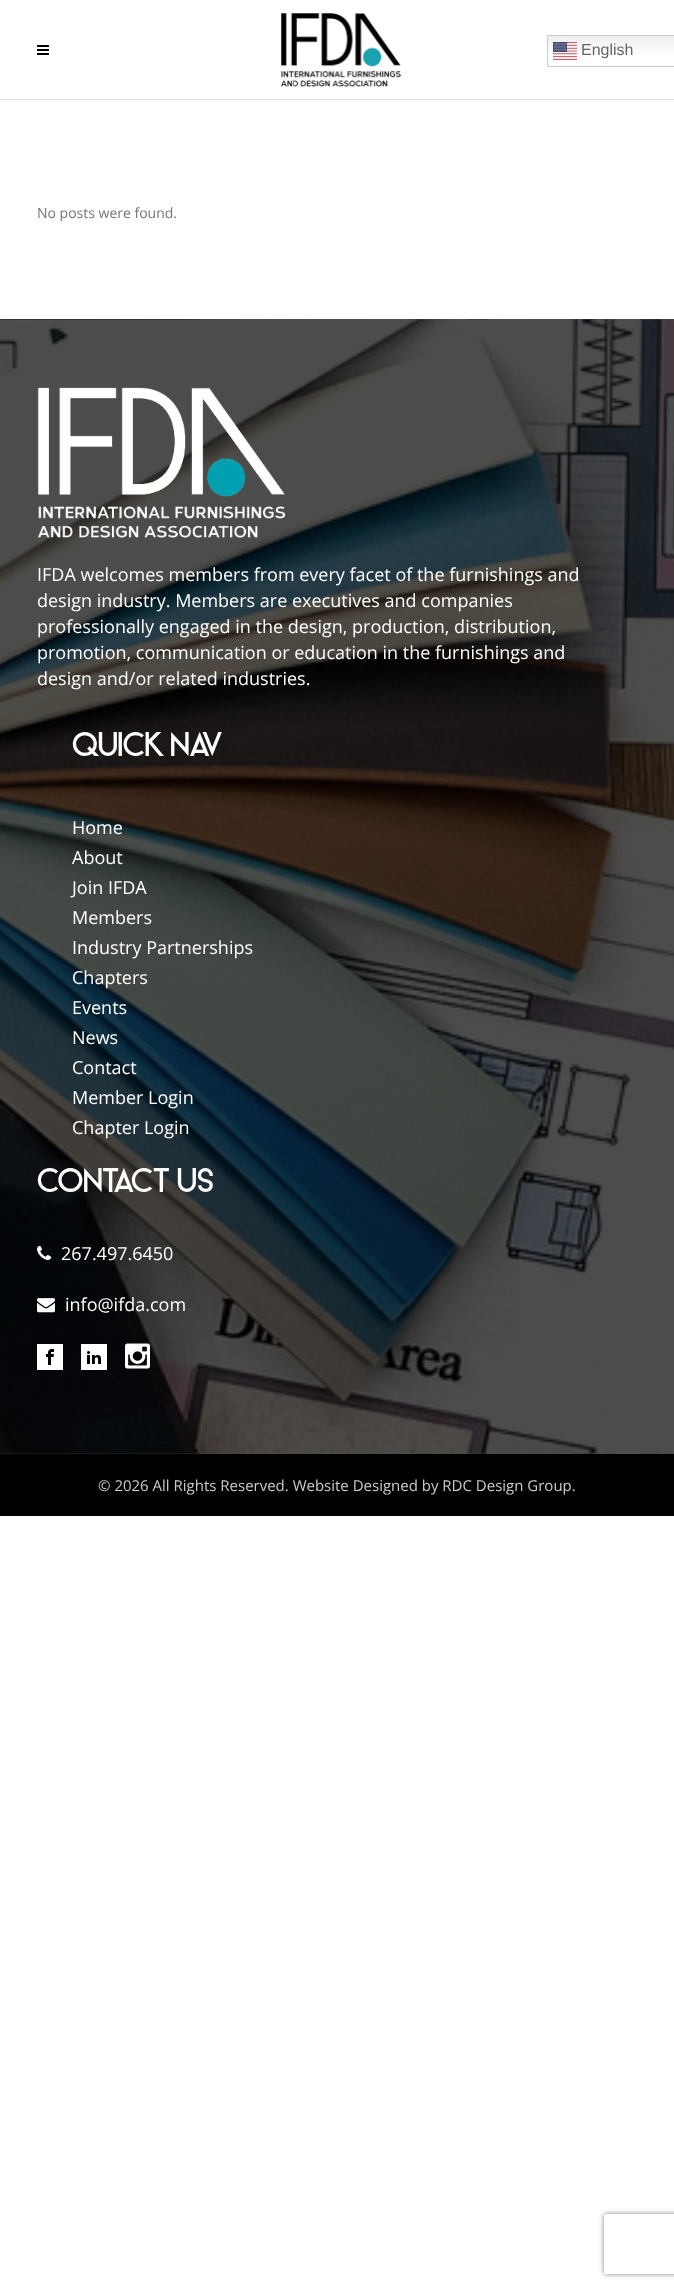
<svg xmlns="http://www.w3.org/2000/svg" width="674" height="2288">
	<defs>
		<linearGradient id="g1" gradientUnits="userSpaceOnUse" x1="634" y1="35" x2="634" y2="67"><stop offset="0" stop-color="#EFEFEF" /><stop offset="0.7" stop-color="#FFFFFF" /></linearGradient>
		<clipPath id="clip1"><path d="M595 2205H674V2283H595ZM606 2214H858C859 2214 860 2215 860 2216V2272C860 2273 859 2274 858 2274H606C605 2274 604 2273 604 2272V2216C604 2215 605 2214 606 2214Z" clip-rule="evenodd" /></clipPath>
	</defs>
	<rect width="100%" height="100%" fill="#FFFFFF" />
	<rect x="0" y="99" width="674" height="1" fill="#E0E0E0" />
	<image x="37" y="45" width="12" height="10" href="assets/img1.png" />
	<image x="281" y="13" width="121" height="74" href="assets/img2.png" />
	<rect x="548" y="36" width="126" height="18" fill="url(#g1)" />
	<rect x="547.5" y="35.5" width="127" height="31" fill="none" stroke="#CCCCCC" />
	<image x="553" y="42" width="24" height="18" href="assets/img3.png" />
	<text x="581" y="55" font-family="Liberation Sans" font-size="16" fill="#666666">English</text>
	<text x="37" y="218" font-family="Open Sans" font-size="14" fill="#757575">No posts were found.</text>
	<image x="0" y="319" width="674" height="1135" href="assets/img4.png" />
	<image x="37" y="387" width="249" height="151" href="assets/img5.png" />
	<g font-family="Open Sans" font-size="18" fill="#FFFFFF">
		<text x="37" y="581">IFDA welcomes members from every facet of the furnishings and</text>
		<text x="37" y="607">design industry. Members are executives and companies</text>
		<text x="37" y="633">professionally engaged in the design, production, distribution,</text>
		<text x="37" y="659">promotion, communication or education in the furnishings and</text>
		<text x="37" y="685">design and/or related industries.</text>
	</g>
	<text x="72" y="756" font-family="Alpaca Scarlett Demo" font-size="30" fill="#FFFFFF">QUICK NAV</text>
	<g font-family="Open Sans" font-size="18" fill="#FFFFFF">
		<text x="72" y="834">Home</text>
		<text x="72" y="864">About</text>
		<text x="72" y="894">Join IFDA</text>
		<text x="72" y="924">Members</text>
		<text x="72" y="954">Industry Partnerships</text>
		<text x="72" y="984">Chapters</text>
		<text x="72" y="1014">Events</text>
		<text x="72" y="1044">News</text>
		<text x="72" y="1074">Contact</text>
		<text x="72" y="1104">Member Login</text>
		<text x="72" y="1134">Chapter Login</text>
	</g>
	<text x="37" y="1192" font-family="Alpaca Scarlett Demo" font-size="30" fill="#FFFFFF">CONTACT US</text>
	<image x="37" y="1245" width="15" height="15" href="assets/img6.png" />
	<text x="61" y="1260" font-family="Open Sans" font-size="18" fill="#FFFFFF">267.497.6450</text>
	<image x="37" y="1298" width="18" height="15" href="assets/img7.png" />
	<text x="65" y="1311" font-family="Open Sans" font-size="18" fill="#FFFFFF">info@ifda.com</text>
	<rect x="37" y="1344" width="26" height="26" fill="#FFFFFF" />
	<image x="46" y="1349" width="8" height="16" href="assets/img8.png" />
	<rect x="81" y="1344" width="26" height="26" fill="#FFFFFF" />
	<image x="87" y="1351" width="14" height="13" href="assets/img9.png" />
	<image x="125" y="1343" width="25" height="26" href="assets/img10.png" />
	<rect x="0" y="1454" width="674" height="62" fill="#000000" />
	<text x="98" y="1491" font-family="Open Sans" font-size="15" fill="#CCCCCC">© 2026 All Rights Reserved. Website Designed by RDC Design Group.</text>
	<g clip-path="url(#clip1)">
		<rect x="604" y="2214" width="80" height="60" rx="2" fill="#808080" filter="blur(2.5px)" />
	</g>
</svg>
